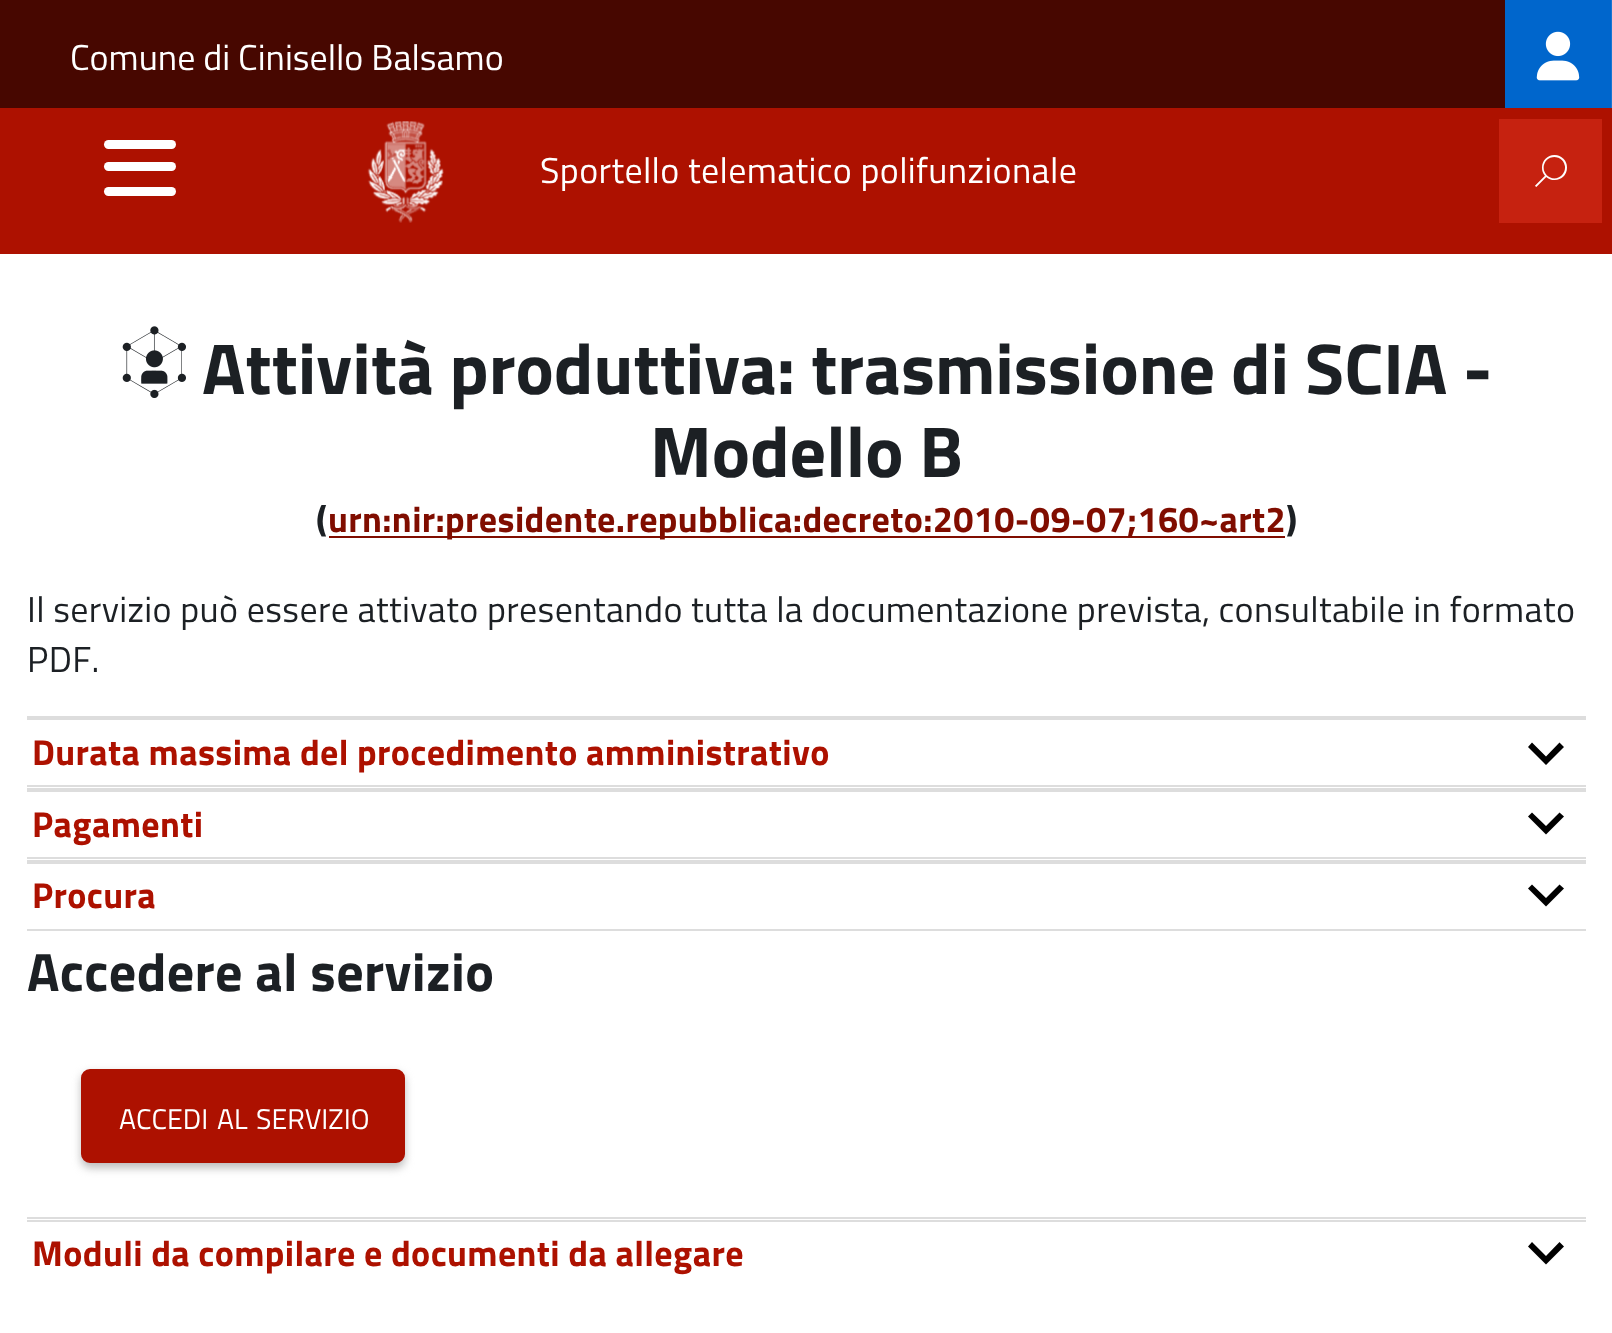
<svg xmlns="http://www.w3.org/2000/svg" width="1612" height="1333">
	<style>*{font-kerning:none!important;font-variant-ligatures:none!important}</style>
	<rect width="100%" height="100%" fill="#FFFFFF" />
	<rect x="0" y="0" width="1505" height="108" fill="#470700" />
	<text x="70" y="70" font-family="Titillium Web" font-size="36" fill="#FFFFFF">Comune di Cinisello Balsamo</text>
	<rect x="1505" y="0" width="106" height="108" fill="#0066CC" />
	<rect x="1611" y="0" width="1" height="108" fill="#1A75D1" />
	<image x="1536" y="31" width="44" height="50" href="assets/img1.png" />
	<rect x="0" y="108" width="1612" height="146" fill="#AD1100" />
	<rect x="104" y="162" width="72" height="9" rx="4.5" fill="#FFFFFF" />
	<rect x="104" y="140" width="72" height="9" rx="4.5" fill="#FFFFFF" />
	<rect x="104" y="187" width="72" height="9" rx="4.5" fill="#FFFFFF" />
	<image x="367" y="121" width="77" height="102" href="assets/img2.png" />
	<text x="540" y="183" font-family="Titillium Web" font-size="36" letter-spacing="0.36" fill="#FFFFFF">Sportello telematico polifunzionale</text>
	<rect x="1499" y="119" width="103" height="104" fill="#C62210" />
	<text x="1535" y="185" font-family="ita" font-size="32" fill="#FFFFFF">🔍</text>
	<image x="122" y="326" width="64" height="72" href="assets/img3.png" />
	<g font-family="Titillium Web" font-size="72" font-weight="700" fill="#1C2024">
		<text x="202" y="394">Attività produttiva: trasmissione di SCIA -</text>
		<text x="650" y="477">Modello B</text>
	</g>
	<text x="316" y="532" font-family="Titillium Web" font-size="36" font-weight="700" letter-spacing="0.36" fill="#1C2024">(</text>
	<rect x="329" y="536" width="956" height="2" fill="#800D00" />
	<text x="328" y="532" font-family="Titillium Web" font-size="36" font-weight="700" letter-spacing="0.36" fill="#800D00">urn:nir:presidente.repubblica:decreto:2010-09-07;160~art2</text>
	<text x="1286" y="532" font-family="Titillium Web" font-size="36" font-weight="700" letter-spacing="0.36" fill="#1C2024">)</text>
	<g font-family="Titillium Web" font-size="36" letter-spacing="0.36" fill="#1C2024">
		<text x="27" y="622">Il servizio può essere attivato presentando tutta la documentazione prevista, consultabile in formato</text>
		<text x="27" y="672">PDF.</text>
	</g>
	<rect x="27" y="716" width="1559" height="4" fill="#DDDDDD" />
	<rect x="27" y="785" width="1559" height="2" fill="#DDDDDD" />
	<path d="M1532 742.5L1528 747L1546 765L1564 747L1559.5 742.5L1546 756.5Z" fill="#000000" />
	<text x="32" y="765" font-family="Titillium Web" font-size="36" font-weight="700" letter-spacing="0.36" fill="#AD1100">Durata massima del procedimento amministrativo</text>
	<rect x="27" y="788" width="1559" height="4" fill="#DDDDDD" />
	<rect x="27" y="857" width="1559" height="2" fill="#DDDDDD" />
	<path d="M1532 812.5L1528 816.5L1546 834.5L1564 816.5L1559.5 812.5L1546 826Z" fill="#000000" />
	<text x="32" y="837" font-family="Titillium Web" font-size="36" font-weight="700" letter-spacing="0.36" fill="#AD1100">Pagamenti</text>
	<rect x="27" y="860" width="1559" height="4" fill="#DDDDDD" />
	<rect x="27" y="929" width="1559" height="2" fill="#DDDDDD" />
	<path d="M1532 884.5L1528 888.5L1546 906.5L1564 888.5L1559.5 884.5L1546 898Z" fill="#000000" />
	<text x="32" y="908" font-family="Titillium Web" font-size="36" font-weight="700" letter-spacing="0.36" fill="#AD1100">Procura</text>
	<text x="27" y="991" font-family="Titillium Web" font-size="54" font-weight="700" letter-spacing="0.36" fill="#1C2024">Accedere al servizio</text>
	<rect x="81" y="1073" width="324" height="95" rx="9" fill="#BDBDBD" filter="blur(4.5px)" />
	<rect x="82" y="1070" width="322" height="92" rx="8" fill="#AD1100" stroke="#AD1100" stroke-width="2" />
	<g font-family="Titillium Web" font-size="28.5" fill="#FFFFFF">
		<text x="119" y="1129">ACCEDI</text>
		<text x="217" y="1129">AL</text>
		<text x="256" y="1129">SERVIZIO</text>
	</g>
	<rect x="27" y="1217" width="1559" height="2" fill="#DDDDDD" />
	<path d="M1532 1242L1528 1246.5L1546 1264.5L1564 1246.5L1559.5 1242L1546 1256Z" fill="#000000" />
	<rect x="27" y="1220" width="1559" height="2" fill="#DDDDDD" />
	<text x="32" y="1266" font-family="Titillium Web" font-size="36" font-weight="700" letter-spacing="0.36" fill="#AD1100">Moduli da compilare e documenti da allegare</text>
</svg>
